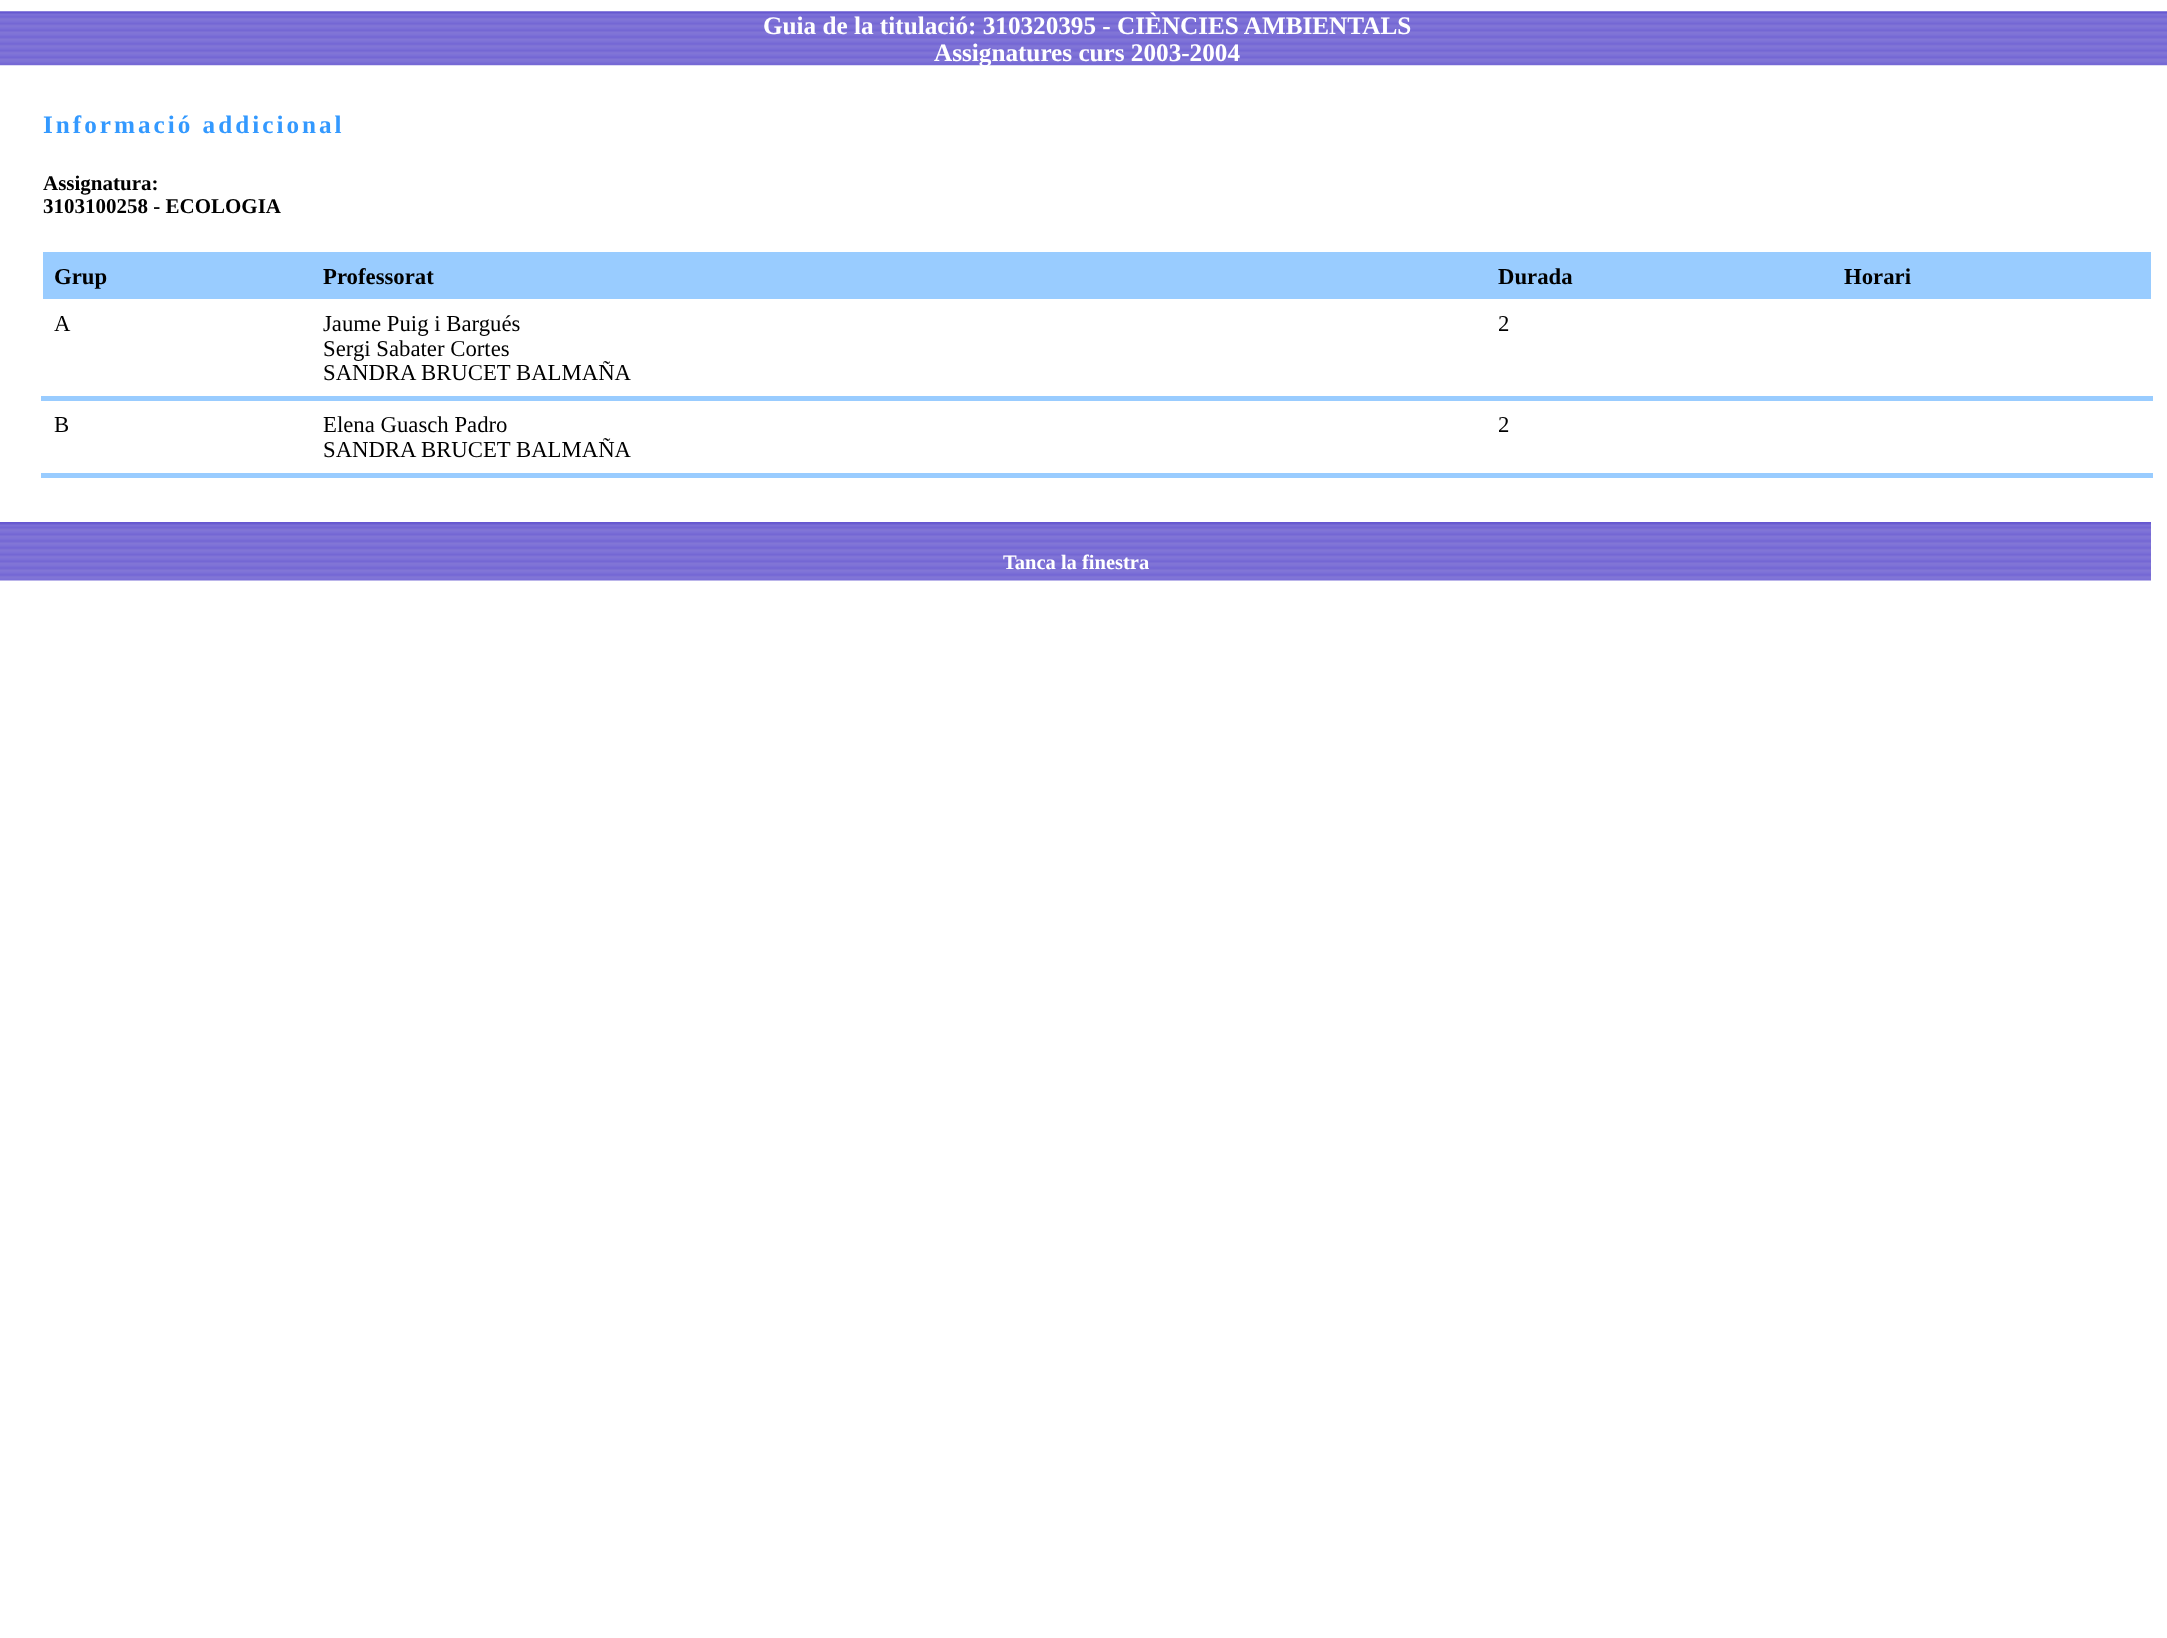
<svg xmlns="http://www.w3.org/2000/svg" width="2167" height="1638">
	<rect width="100%" height="100%" fill="#FFFFFF" />
	<image x="0" y="11" width="2167" height="55" href="assets/img1.png" />
	<g font-family="Liberation Serif" font-size="25.2" font-weight="700" fill="#FFFFFF">
		<text x="763" y="34">Guia de la titulació: 310320395 - CIÈNCIES AMBIENTALS</text>
		<text x="934" y="61">Assignatures curs 2003-2004</text>
	</g>
	<text x="43" y="133" font-family="Liberation Serif" font-size="25.2" font-weight="700" letter-spacing="3" fill="#3399FF">Informació addicional</text>
	<g font-family="Liberation Serif" font-size="21" font-weight="700" fill="#000000">
		<text x="43" y="190">Assignatura:</text>
		<text x="43" y="213">3103100258 - ECOLOGIA</text>
	</g>
	<rect x="43" y="252" width="2108" height="47" fill="#99CCFF" />
	<g font-family="Liberation Serif" font-size="22.75" font-weight="700" fill="#000000">
		<text x="54" y="284">Grup</text>
		<text x="323" y="284">Professorat</text>
		<text x="1498" y="284">Durada</text>
		<text x="1844" y="284">Horari</text>
	</g>
	<g font-family="Liberation Serif" font-size="22.75" fill="#000000">
		<text x="54" y="331">A</text>
		<text x="323" y="331">Jaume Puig i Bargués</text>
		<text x="323" y="356">Sergi Sabater Cortes</text>
		<text x="323" y="380">SANDRA BRUCET BALMAÑA</text>
		<text x="1498" y="331">2</text>
	</g>
	<rect x="41" y="396" width="2112" height="5" fill="#99CCFF" />
	<g font-family="Liberation Serif" font-size="22.75" fill="#000000">
		<text x="54" y="432">B</text>
		<text x="323" y="432">Elena Guasch Padro</text>
		<text x="323" y="457">SANDRA BRUCET BALMAÑA</text>
		<text x="1498" y="432">2</text>
	</g>
	<rect x="41" y="473" width="2112" height="5" fill="#99CCFF" />
	<image x="0" y="522" width="2151" height="59" href="assets/img2.png" />
	<text x="1003" y="569" font-family="Liberation Serif" font-size="20.5" font-weight="700" fill="#FFFFFF">Tanca la finestra</text>
</svg>
